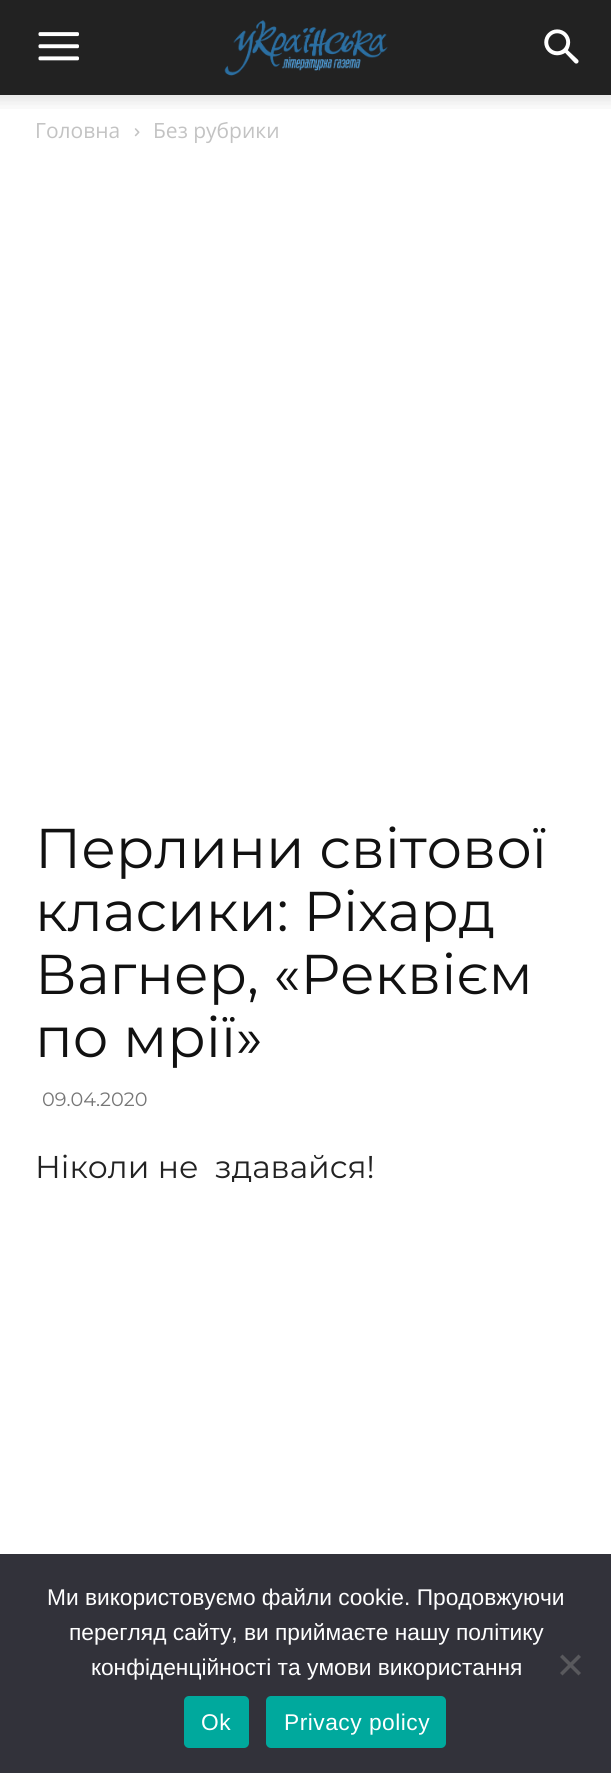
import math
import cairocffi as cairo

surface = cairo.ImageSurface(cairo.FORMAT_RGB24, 611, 1773)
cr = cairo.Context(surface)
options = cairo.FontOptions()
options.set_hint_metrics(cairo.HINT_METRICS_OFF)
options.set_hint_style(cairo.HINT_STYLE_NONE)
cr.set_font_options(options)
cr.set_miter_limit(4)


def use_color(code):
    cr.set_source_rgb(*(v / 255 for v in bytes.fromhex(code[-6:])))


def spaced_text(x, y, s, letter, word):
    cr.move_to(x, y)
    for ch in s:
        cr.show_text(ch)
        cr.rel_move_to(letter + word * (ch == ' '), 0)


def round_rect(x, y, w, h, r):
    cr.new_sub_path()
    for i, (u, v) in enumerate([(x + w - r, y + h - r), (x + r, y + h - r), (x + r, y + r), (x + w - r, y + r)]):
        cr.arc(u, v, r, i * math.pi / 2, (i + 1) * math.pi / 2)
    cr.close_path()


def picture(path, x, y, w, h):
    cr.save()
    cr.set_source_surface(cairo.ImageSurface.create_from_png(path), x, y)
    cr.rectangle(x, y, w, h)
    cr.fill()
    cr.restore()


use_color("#ffffff")
cr.paint()
use_color("#222222")
cr.rectangle(0, 0, 611, 95)
cr.fill()
picture("img1.png", 38, 32, 41, 29)
picture("img2.png", 224, 20, 164, 56)
picture("img3.png", 544, 29, 35, 35)
picture("img4.png", 0, 95, 611, 14)
cr.select_font_face("Open Sans")
cr.set_font_size(21)
use_color("#c3c3c3")
cr.move_to(35, 138)
cr.show_text("Головна")
picture("img5.png", 134, 128, 6, 9)
cr.move_to(153, 138)
cr.show_text("Без рубрики")
cr.select_font_face("Montserrat Thin")
cr.set_font_size(56)
use_color("#111111")
cr.move_to(35, 868)
cr.show_text("Перлини світової")
cr.move_to(35, 931)
cr.show_text("класики: Ріхард")
cr.move_to(35, 994)
cr.show_text("Вагнер, «Реквієм")
cr.move_to(35, 1057)
cr.show_text("по мрії»")
cr.set_font_size(19.25)
use_color("#767676")
cr.move_to(42, 1106)
cr.show_text("09.04.2020")
cr.set_font_size(31.5)
use_color("#222222")
cr.move_to(35, 1178)
cr.show_text("Ніколи не  здавайся!")
use_color("#32323a")
cr.rectangle(0, 1554, 611, 219)
cr.fill()
cr.select_font_face("Liberation Sans")
cr.set_font_size(22.75)
use_color("#ffffff")
cr.move_to(47, 1605)
cr.show_text("Ми використовуємо файли cookie. Продовжуючи")
cr.move_to(69, 1640)
cr.show_text("перегляд сайту, ви приймаєте нашу політику")
cr.move_to(91, 1675)
cr.show_text("конфіденційності та умови використання")
use_color("#59595d")
cr.new_path()
cr.move_to(578.5, 1654.5)
cr.line_to(581, 1657)
cr.line_to(562.5, 1675.5)
cr.line_to(560, 1673)
cr.close_path()
cr.fill()
cr.new_path()
cr.move_to(560, 1657)
cr.line_to(562.5, 1654.5)
cr.line_to(581, 1673)
cr.line_to(578.5, 1675.5)
cr.close_path()
cr.fill()
use_color("#00a99d")
round_rect(184, 1696, 65, 52, 5)
cr.fill()
use_color("#ffffff")
spaced_text(201, 1730, "Ok", 0.5, 0)
use_color("#00a99d")
round_rect(266, 1696, 180, 52, 5)
cr.fill()
use_color("#ffffff")
spaced_text(284, 1730, "Privacy policy", 0.5, 0)
surface.write_to_png("result.png")
